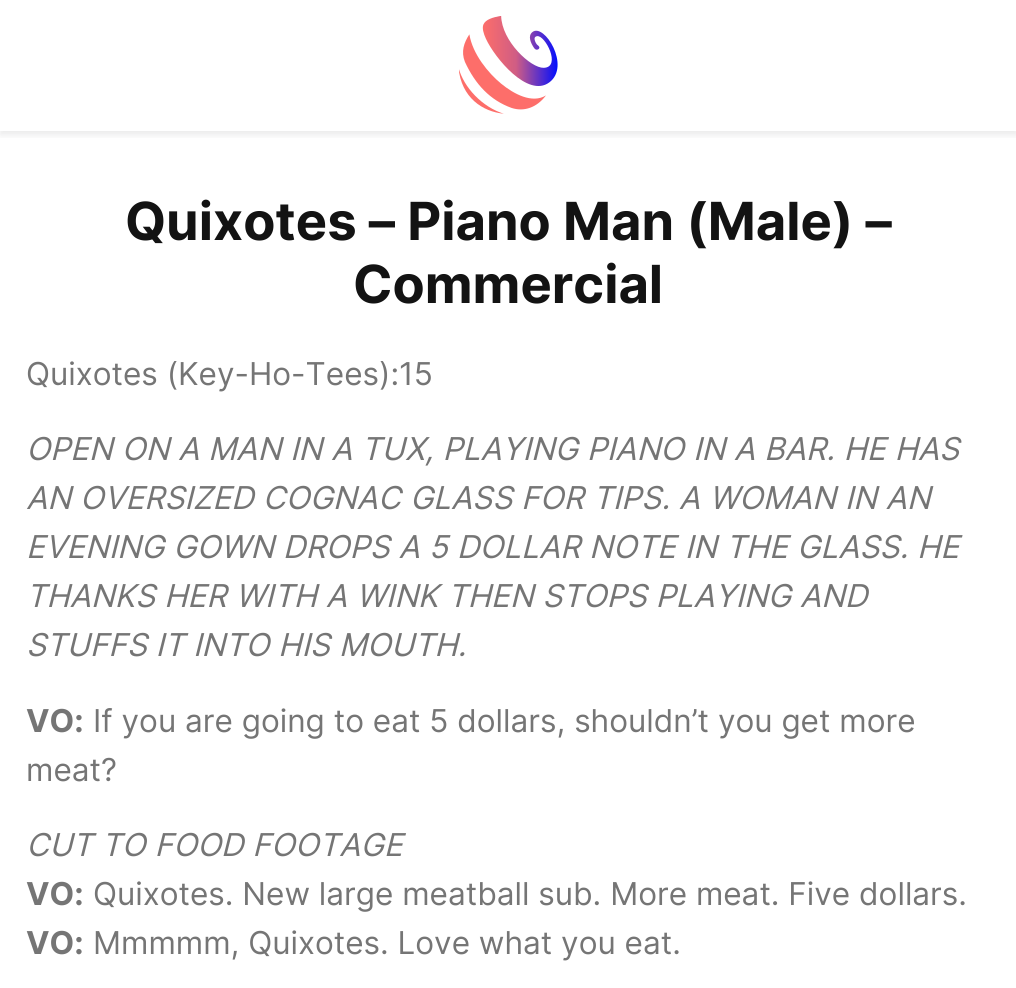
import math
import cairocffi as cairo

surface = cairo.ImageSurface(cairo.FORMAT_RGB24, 1016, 988)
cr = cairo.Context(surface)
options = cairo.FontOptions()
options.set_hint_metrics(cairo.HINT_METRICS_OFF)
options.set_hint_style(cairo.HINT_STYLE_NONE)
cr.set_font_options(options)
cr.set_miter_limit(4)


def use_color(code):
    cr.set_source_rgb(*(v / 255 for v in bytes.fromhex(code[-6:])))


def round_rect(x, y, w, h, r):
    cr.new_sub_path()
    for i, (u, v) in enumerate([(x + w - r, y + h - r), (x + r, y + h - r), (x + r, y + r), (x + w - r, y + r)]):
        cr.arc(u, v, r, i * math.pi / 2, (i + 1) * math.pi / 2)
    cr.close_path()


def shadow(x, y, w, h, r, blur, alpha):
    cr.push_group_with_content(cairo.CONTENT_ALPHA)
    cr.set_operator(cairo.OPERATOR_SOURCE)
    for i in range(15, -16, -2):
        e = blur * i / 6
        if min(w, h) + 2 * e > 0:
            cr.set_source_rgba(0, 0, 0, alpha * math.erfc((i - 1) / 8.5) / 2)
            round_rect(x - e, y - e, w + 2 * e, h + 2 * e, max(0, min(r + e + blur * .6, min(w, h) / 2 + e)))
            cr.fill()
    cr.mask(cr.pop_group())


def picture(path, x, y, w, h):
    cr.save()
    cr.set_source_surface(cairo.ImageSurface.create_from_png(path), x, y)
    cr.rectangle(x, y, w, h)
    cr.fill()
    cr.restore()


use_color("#ffffff")
cr.paint()
cr.save()
cr.rectangle(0, 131, 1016, 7)
cr.clip()
use_color("#303133")
shadow(0, 4, 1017, 131, 0, 3.5, 0.1)
cr.restore()
picture("img1.png", 459, 16, 99, 98)
cr.select_font_face("Inter", cairo.FONT_SLANT_NORMAL, cairo.FONT_WEIGHT_BOLD)
cr.set_font_size(52.5)
use_color("#131313")
cr.move_to(125, 240)
cr.show_text("Quixotes – Piano Man (Male) –")
cr.move_to(353, 303)
cr.show_text("Commercial")
cr.select_font_face("Inter")
cr.set_font_size(31.5)
use_color("#757575")
cr.move_to(26, 385)
cr.show_text("Quixotes (Key-Ho-Tees):15")
cr.select_font_face("Inter", cairo.FONT_SLANT_ITALIC)
cr.move_to(26, 460)
cr.show_text("OPEN ON A MAN IN A TUX, PLAYING PIANO IN A BAR. HE HAS")
cr.move_to(26, 509)
cr.show_text("AN OVERSIZED COGNAC GLASS FOR TIPS. A WOMAN IN AN")
cr.move_to(26, 558)
cr.show_text("EVENING GOWN DROPS A 5 DOLLAR NOTE IN THE GLASS. HE")
cr.move_to(26, 607)
cr.show_text("THANKS HER WITH A WINK THEN STOPS PLAYING AND")
cr.move_to(26, 656)
cr.show_text("STUFFS IT INTO HIS MOUTH.")
cr.select_font_face("Inter", cairo.FONT_SLANT_NORMAL, cairo.FONT_WEIGHT_BOLD)
cr.move_to(26, 732)
cr.show_text("VO:")
cr.select_font_face("Inter")
cr.move_to(93, 732)
cr.show_text("If you are going to eat 5 dollars, shouldn’t you get more")
cr.move_to(26, 781)
cr.show_text("meat?")
cr.select_font_face("Inter", cairo.FONT_SLANT_ITALIC)
cr.move_to(26, 856)
cr.show_text("CUT TO FOOD FOOTAGE")
cr.select_font_face("Inter", cairo.FONT_SLANT_NORMAL, cairo.FONT_WEIGHT_BOLD)
cr.move_to(26, 905)
cr.show_text("VO:")
cr.select_font_face("Inter")
cr.move_to(93, 905)
cr.show_text("Quixotes. New large meatball sub. More meat. Five dollars.")
cr.select_font_face("Inter", cairo.FONT_SLANT_NORMAL, cairo.FONT_WEIGHT_BOLD)
cr.move_to(26, 954)
cr.show_text("VO:")
cr.select_font_face("Inter")
cr.move_to(93, 954)
cr.show_text("Mmmmm, Quixotes. Love what you eat.")
surface.write_to_png("result.png")
